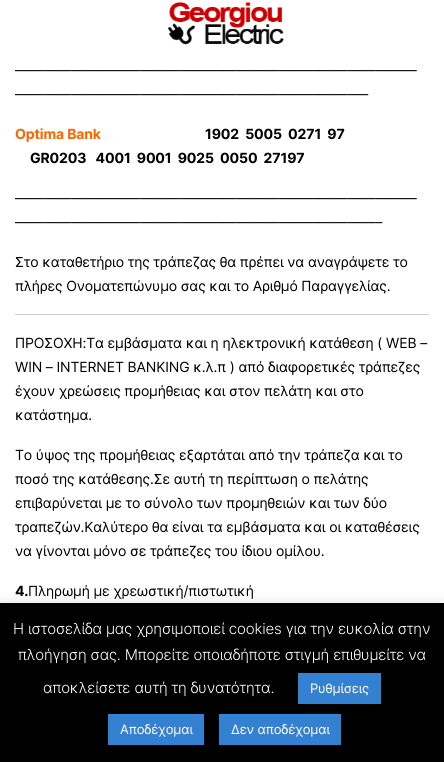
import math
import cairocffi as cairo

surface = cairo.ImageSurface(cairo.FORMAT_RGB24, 444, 762)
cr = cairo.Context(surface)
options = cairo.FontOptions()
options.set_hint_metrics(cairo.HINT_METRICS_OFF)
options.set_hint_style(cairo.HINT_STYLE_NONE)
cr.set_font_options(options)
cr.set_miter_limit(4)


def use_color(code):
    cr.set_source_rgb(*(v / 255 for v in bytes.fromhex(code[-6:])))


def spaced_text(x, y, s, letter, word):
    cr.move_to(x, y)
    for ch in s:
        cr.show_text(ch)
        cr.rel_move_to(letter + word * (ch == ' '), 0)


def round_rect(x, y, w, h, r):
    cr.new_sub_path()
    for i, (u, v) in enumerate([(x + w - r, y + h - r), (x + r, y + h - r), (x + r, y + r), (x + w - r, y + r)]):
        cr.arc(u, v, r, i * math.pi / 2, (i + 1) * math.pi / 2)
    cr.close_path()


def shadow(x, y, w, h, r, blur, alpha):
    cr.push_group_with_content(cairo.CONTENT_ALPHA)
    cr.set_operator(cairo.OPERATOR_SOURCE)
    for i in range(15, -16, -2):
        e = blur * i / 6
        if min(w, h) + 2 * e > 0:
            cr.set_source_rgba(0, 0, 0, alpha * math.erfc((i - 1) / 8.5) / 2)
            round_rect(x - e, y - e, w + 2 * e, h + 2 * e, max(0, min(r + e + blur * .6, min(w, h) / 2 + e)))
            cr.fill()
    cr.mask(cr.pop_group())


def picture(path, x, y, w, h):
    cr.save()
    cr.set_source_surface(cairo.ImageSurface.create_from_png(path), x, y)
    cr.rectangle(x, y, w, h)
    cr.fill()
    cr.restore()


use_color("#ffffff")
cr.paint()
picture("img1.png", 167, 2, 117, 43)
cr.select_font_face("Inter")
cr.set_font_size(14)
use_color("#000000")
spaced_text(15, 75, "—————————————————————————————", -0.15, 0)
spaced_text(15, 99, "—————————————————————————–", -0.15, 0)
cr.select_font_face("Inter", cairo.FONT_SLANT_NORMAL, cairo.FONT_WEIGHT_BOLD)
use_color("#ff6600")
spaced_text(15, 139, "Optima Bank", -0.15, 0)
use_color("#000000")
spaced_text(205, 139, "1902  5005  0271  97", -0.15, 0)
spaced_text(30, 163, "GR0203   4001  9001  9025  0050  27197", -0.15, 0)
cr.select_font_face("Inter")
spaced_text(15, 203, "—————————————————————————————", -0.15, 0)
spaced_text(15, 227, "——————————————————————————–", -0.15, 0)
spaced_text(15, 267, "Στο καταθετήριο της τράπεζας θα πρέπει να αναγράψετε το", -0.15, 0)
spaced_text(15, 291, "πλήρες Ονοματεπώνυμο σας και το Αριθμό Παραγγελίας.", -0.15, 0)
use_color("#cccfd1")
cr.rectangle(15, 314, 414, 1)
cr.fill()
use_color("#000000")
spaced_text(15, 348, "ΠΡΟΣΟΧΗ:Τα εμβάσματα και η ηλεκτρονική κατάθεση ( WEB –", -0.15, 0)
spaced_text(15, 372, "WIN – INTERNET BANKING κ.λ.π ) από διαφορετικές τράπεζες", -0.15, 0)
spaced_text(15, 396, "έχουν χρεώσεις προμήθειας και στον πελάτη και στο", -0.15, 0)
spaced_text(15, 420, "κατάστημα.", -0.15, 0)
spaced_text(15, 460, "Το ύψος της προμήθειας εξαρτάται από την τράπεζα και το", -0.15, 0)
spaced_text(15, 484, "ποσό της κατάθεσης.Σε αυτή τη περίπτωση ο πελάτης", -0.15, 0)
spaced_text(15, 508, "επιβαρύνεται με το σύνολο των προμηθειών και των δύο", -0.15, 0)
spaced_text(15, 532, "τραπεζών.Καλύτερο θα είναι τα εμβάσματα και οι καταθέσεις", -0.15, 0)
spaced_text(15, 556, "να γίνονται μόνο σε τράπεζες του ίδιου ομίλου.", -0.15, 0)
cr.select_font_face("Inter", cairo.FONT_SLANT_NORMAL, cairo.FONT_WEIGHT_BOLD)
spaced_text(15, 596, "4.", -0.15, 0)
cr.select_font_face("Inter")
spaced_text(28, 596, "Πληρωμή με χρεωστική/πιστωτική", -0.15, 0)
use_color("#acabab")
shadow(0, 602, 444, 159, 0, 5, 0.3)
use_color("#000000")
cr.rectangle(0, 603, 444, 159)
cr.fill()
cr.select_font_face("Inter Light")
cr.set_font_size(15)
use_color("#ffffff")
spaced_text(13, 634, "Η ιστοσελίδα μας χρησιμοποιεί cookies για την ευκολία στην", -0.15, 0)
spaced_text(18, 660, "πλοήγηση σας. Μπορείτε οποιαδήποτε στιγμή επιθυμείτε να", -0.15, 0)
spaced_text(43, 693, "αποκλείσετε αυτή τη δυνατότητα.", -0.15, 0)
use_color("#3480d1")
cr.rectangle(298, 673, 83, 31)
cr.fill()
cr.select_font_face("Inter")
cr.set_font_size(13)
use_color("#ffffff")
spaced_text(310, 693, "Ρυθμίσεις", -0.15, 0)
use_color("#3480d1")
cr.rectangle(108, 714, 96, 31)
cr.fill()
use_color("#ffffff")
spaced_text(120, 734, "Αποδέχομαι", -0.15, 0)
use_color("#3480d1")
cr.rectangle(219, 714, 122, 31)
cr.fill()
use_color("#ffffff")
spaced_text(231, 734, "Δεν αποδέχομαι", -0.15, 0)
surface.write_to_png("result.png")
